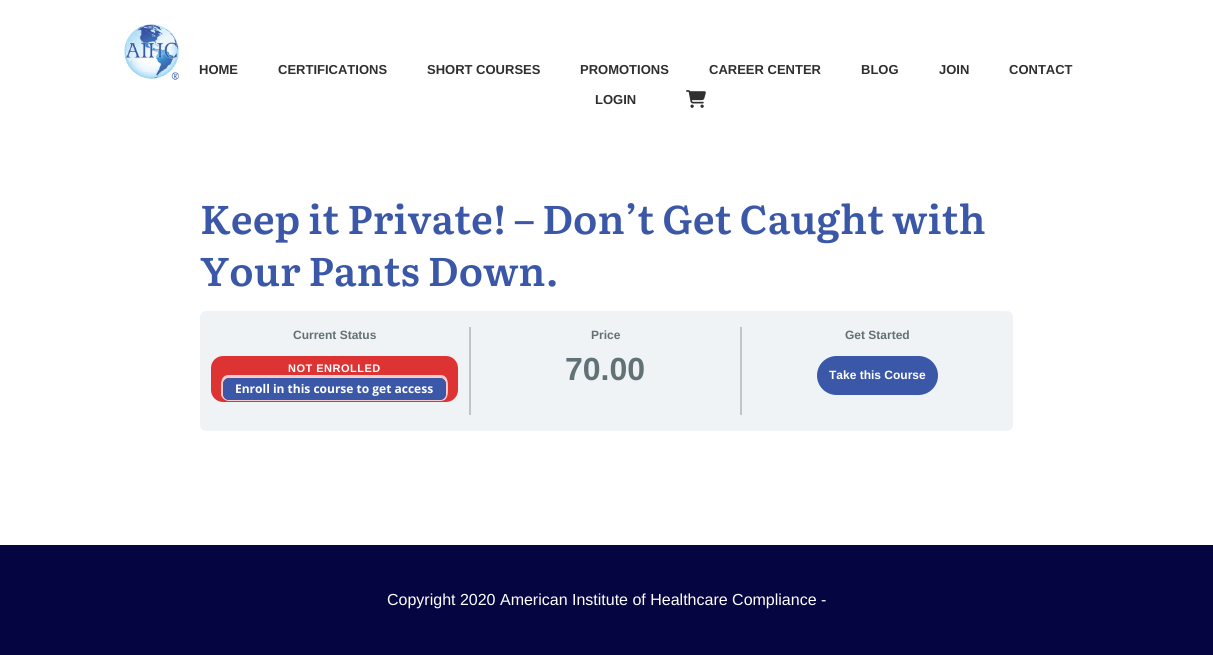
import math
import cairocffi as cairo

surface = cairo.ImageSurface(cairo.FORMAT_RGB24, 1213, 655)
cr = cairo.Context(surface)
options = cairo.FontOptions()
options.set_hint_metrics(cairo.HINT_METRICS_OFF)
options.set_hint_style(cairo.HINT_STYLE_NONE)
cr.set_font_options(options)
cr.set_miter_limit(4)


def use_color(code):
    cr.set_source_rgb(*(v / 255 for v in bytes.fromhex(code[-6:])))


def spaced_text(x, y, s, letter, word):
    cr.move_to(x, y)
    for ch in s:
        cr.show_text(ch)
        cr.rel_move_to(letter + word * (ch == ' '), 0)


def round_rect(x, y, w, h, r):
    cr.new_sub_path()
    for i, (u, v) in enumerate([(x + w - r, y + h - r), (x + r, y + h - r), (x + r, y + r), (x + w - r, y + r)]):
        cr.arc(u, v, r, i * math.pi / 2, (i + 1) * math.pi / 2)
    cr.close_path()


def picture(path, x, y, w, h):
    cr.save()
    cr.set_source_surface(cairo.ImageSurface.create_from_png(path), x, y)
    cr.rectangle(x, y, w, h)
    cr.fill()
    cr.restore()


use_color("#ffffff")
cr.paint()
picture("img1.png", 124, 24, 55, 56)
cr.select_font_face("Liberation Sans", cairo.FONT_SLANT_NORMAL, cairo.FONT_WEIGHT_BOLD)
cr.set_font_size(13)
use_color("#2f2f2f")
cr.move_to(199, 74)
cr.show_text("HOME")
cr.move_to(278, 74)
cr.show_text("CERTIFICATIONS")
cr.move_to(427, 74)
cr.show_text("SHORT COURSES")
cr.move_to(580, 74)
cr.show_text("PROMOTIONS")
cr.move_to(709, 74)
cr.show_text("CAREER CENTER")
cr.move_to(861, 74)
cr.show_text("BLOG")
cr.move_to(939, 74)
cr.show_text("JOIN")
cr.move_to(1009, 74)
cr.show_text("CONTACT")
cr.move_to(595, 104)
cr.show_text("LOGIN")
picture("img2.png", 686, 90, 20, 18)
cr.select_font_face("Literata SemiBold")
cr.set_font_size(40)
use_color("#3b57a8")
cr.move_to(200, 234)
cr.show_text("Keep it Private! – Don’t Get Caught with")
cr.move_to(200, 286)
cr.show_text("Your Pants Down.")
use_color("#f0f3f6")
round_rect(200, 311, 813, 120, 6)
cr.fill()
use_color("#bec5cb")
cr.rectangle(469, 327, 2, 88)
cr.fill()
cr.select_font_face("Liberation Sans", cairo.FONT_SLANT_NORMAL, cairo.FONT_WEIGHT_BOLD)
cr.set_font_size(12)
use_color("#617175")
cr.move_to(293, 339)
cr.show_text("Current Status")
use_color("#dd3333")
round_rect(211, 356, 247, 46, 12)
cr.fill()
cr.set_font_size(11)
use_color("#ffffff")
spaced_text(288, 372, "NOT ENROLLED", 0.5, 0)
use_color("#f7cccc")
cr.set_fill_rule(cairo.FILL_RULE_EVEN_ODD)
cr.new_path()
cr.move_to(229, 375)
cr.curve_to(221, 375, 221, 382, 221, 388)
cr.line_to(221, 395)
cr.curve_to(222, 398, 225, 401, 229, 401)
cr.line_to(440, 401)
cr.curve_to(448, 401, 448, 394, 448, 388)
cr.curve_to(448, 382, 448, 375, 440, 375)
cr.close_path()
cr.move_to(229, 378)
cr.curve_to(226, 378, 223, 381, 223, 384)
cr.line_to(223, 394)
cr.curve_to(223, 397, 226, 400, 229, 400)
cr.line_to(440, 400)
cr.curve_to(443, 400, 446, 397, 446, 394)
cr.line_to(446, 384)
cr.curve_to(446, 381, 443, 378, 440, 378)
cr.close_path()
cr.fill()
use_color("#3b57a8")
round_rect(223, 378, 223, 22, 6)
cr.fill()
cr.select_font_face("Open Sans", cairo.FONT_SLANT_NORMAL, cairo.FONT_WEIGHT_BOLD)
cr.set_font_size(12)
use_color("#ffffff")
cr.move_to(235, 393)
cr.show_text("Enroll in this course to get access")
use_color("#bec5cb")
cr.rectangle(740, 327, 2, 88)
cr.fill()
cr.select_font_face("Liberation Sans", cairo.FONT_SLANT_NORMAL, cairo.FONT_WEIGHT_BOLD)
use_color("#617175")
cr.move_to(591, 339)
cr.show_text("Price")
cr.set_font_size(32)
cr.move_to(565, 380)
cr.show_text("70.00")
cr.set_font_size(12)
cr.move_to(845, 339)
cr.show_text("Get Started")
use_color("#3b57a8")
round_rect(817, 356, 121, 39, 19.5)
cr.fill()
use_color("#ffffff")
cr.move_to(829, 379)
cr.show_text("Take this Course")
use_color("#050541")
cr.rectangle(0, 545, 1213, 110)
cr.fill()
cr.select_font_face("Liberation Sans")
cr.set_font_size(16)
use_color("#ffffff")
cr.move_to(387, 605)
cr.show_text("Copyright 2020 American Institute of Healthcare Compliance -")
surface.write_to_png("result.png")
